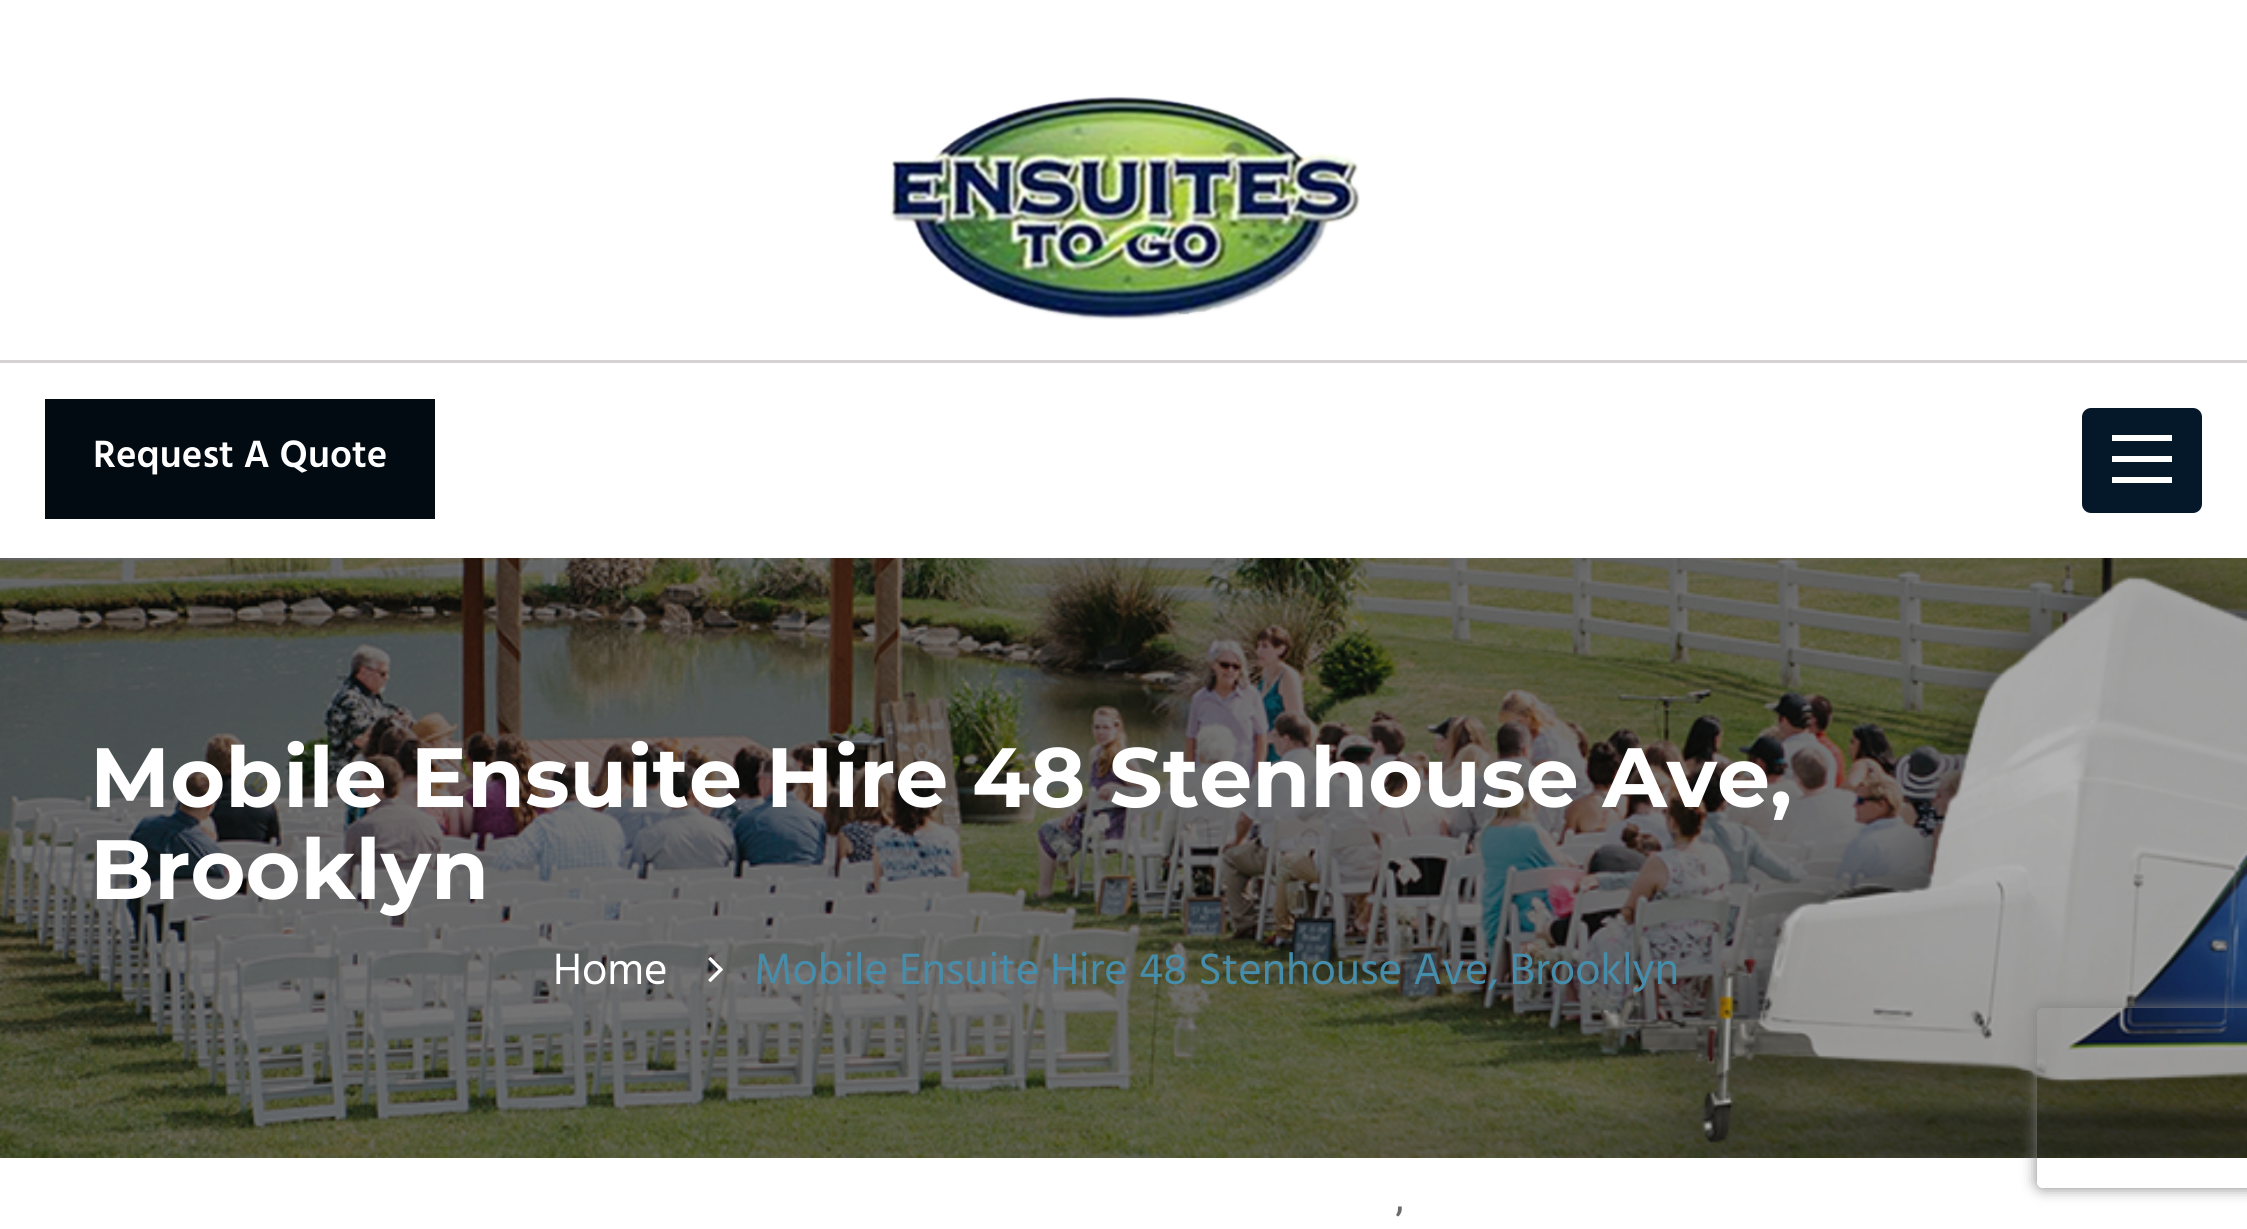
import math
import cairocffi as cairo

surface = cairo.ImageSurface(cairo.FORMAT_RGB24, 2247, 1229)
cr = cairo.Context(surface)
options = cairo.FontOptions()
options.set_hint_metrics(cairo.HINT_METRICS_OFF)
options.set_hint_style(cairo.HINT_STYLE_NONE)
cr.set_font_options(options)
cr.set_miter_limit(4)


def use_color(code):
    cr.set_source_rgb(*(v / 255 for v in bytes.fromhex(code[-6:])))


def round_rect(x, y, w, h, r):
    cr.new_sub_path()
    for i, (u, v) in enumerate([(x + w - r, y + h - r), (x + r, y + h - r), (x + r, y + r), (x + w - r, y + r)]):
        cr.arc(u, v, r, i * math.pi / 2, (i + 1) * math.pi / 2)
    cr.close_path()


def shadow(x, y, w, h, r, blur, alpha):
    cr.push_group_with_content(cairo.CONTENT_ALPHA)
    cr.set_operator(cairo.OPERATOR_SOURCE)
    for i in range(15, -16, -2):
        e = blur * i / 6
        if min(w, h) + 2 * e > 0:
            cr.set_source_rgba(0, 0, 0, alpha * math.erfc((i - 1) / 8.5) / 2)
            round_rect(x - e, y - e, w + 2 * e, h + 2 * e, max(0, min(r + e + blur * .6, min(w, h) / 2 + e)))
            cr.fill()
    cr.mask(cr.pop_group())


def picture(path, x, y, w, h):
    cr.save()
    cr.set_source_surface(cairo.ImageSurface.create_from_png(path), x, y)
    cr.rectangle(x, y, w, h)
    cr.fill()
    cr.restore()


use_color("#ffffff")
cr.paint()
use_color("#d4d2d2")
cr.rectangle(0, 360, 2247, 3)
cr.fill()
picture("img1.png", 890, 96, 470, 224)
use_color("#020b12")
cr.rectangle(45, 399, 390, 120)
cr.fill()
cr.select_font_face("Hind SemiBold")
cr.set_font_size(39)
use_color("#ffffff")
cr.move_to(93, 467)
cr.show_text("Request A Quote")
use_color("#051829")
round_rect(2082, 408, 120, 105, 9)
cr.fill()
use_color("#ffffff")
cr.rectangle(2112, 435, 60, 6)
cr.fill()
cr.rectangle(2112, 456, 60, 6)
cr.fill()
cr.rectangle(2112, 477, 60, 6)
cr.fill()
picture("img2.png", 0, 558, 2247, 600)
cr.select_font_face("Montserrat", cairo.FONT_SLANT_NORMAL, cairo.FONT_WEIGHT_BOLD)
cr.set_font_size(84)
cr.move_to(90, 807)
cr.show_text("Mobile Ensuite Hire 48 Stenhouse Ave,")
cr.move_to(90, 899)
cr.show_text("Brooklyn")
cr.select_font_face("Hind")
cr.set_font_size(45)
cr.move_to(553, 984)
cr.show_text("Home")
picture("img3.png", 708, 957, 15, 25)
use_color("#468dab")
cr.move_to(754, 984)
cr.show_text("Mobile Ensuite Hire 48 Stenhouse Ave, Brooklyn")
cr.select_font_face("Roboto")
cr.set_font_size(42)
use_color("#6a6a6a")
cr.move_to(1395, 1238)
cr.show_text("’")
cr.save()
cr.set_fill_rule(cairo.FILL_RULE_EVEN_ODD)
cr.new_path()
cr.move_to(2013, 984)
cr.line_to(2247, 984)
cr.line_to(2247, 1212)
cr.line_to(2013, 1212)
cr.close_path()
cr.move_to(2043, 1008)
cr.line_to(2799, 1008)
cr.curve_to(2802.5, 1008, 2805, 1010.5, 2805, 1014)
cr.line_to(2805, 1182)
cr.curve_to(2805, 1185.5, 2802.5, 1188, 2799, 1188)
cr.line_to(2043, 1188)
cr.curve_to(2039.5, 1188, 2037, 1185.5, 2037, 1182)
cr.line_to(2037, 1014)
cr.curve_to(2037, 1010.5, 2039.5, 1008, 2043, 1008)
cr.close_path()
cr.clip()
use_color("#808080")
shadow(2037, 1008, 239, 180, 6, 7.5, 1)
cr.restore()
surface.write_to_png("result.png")
